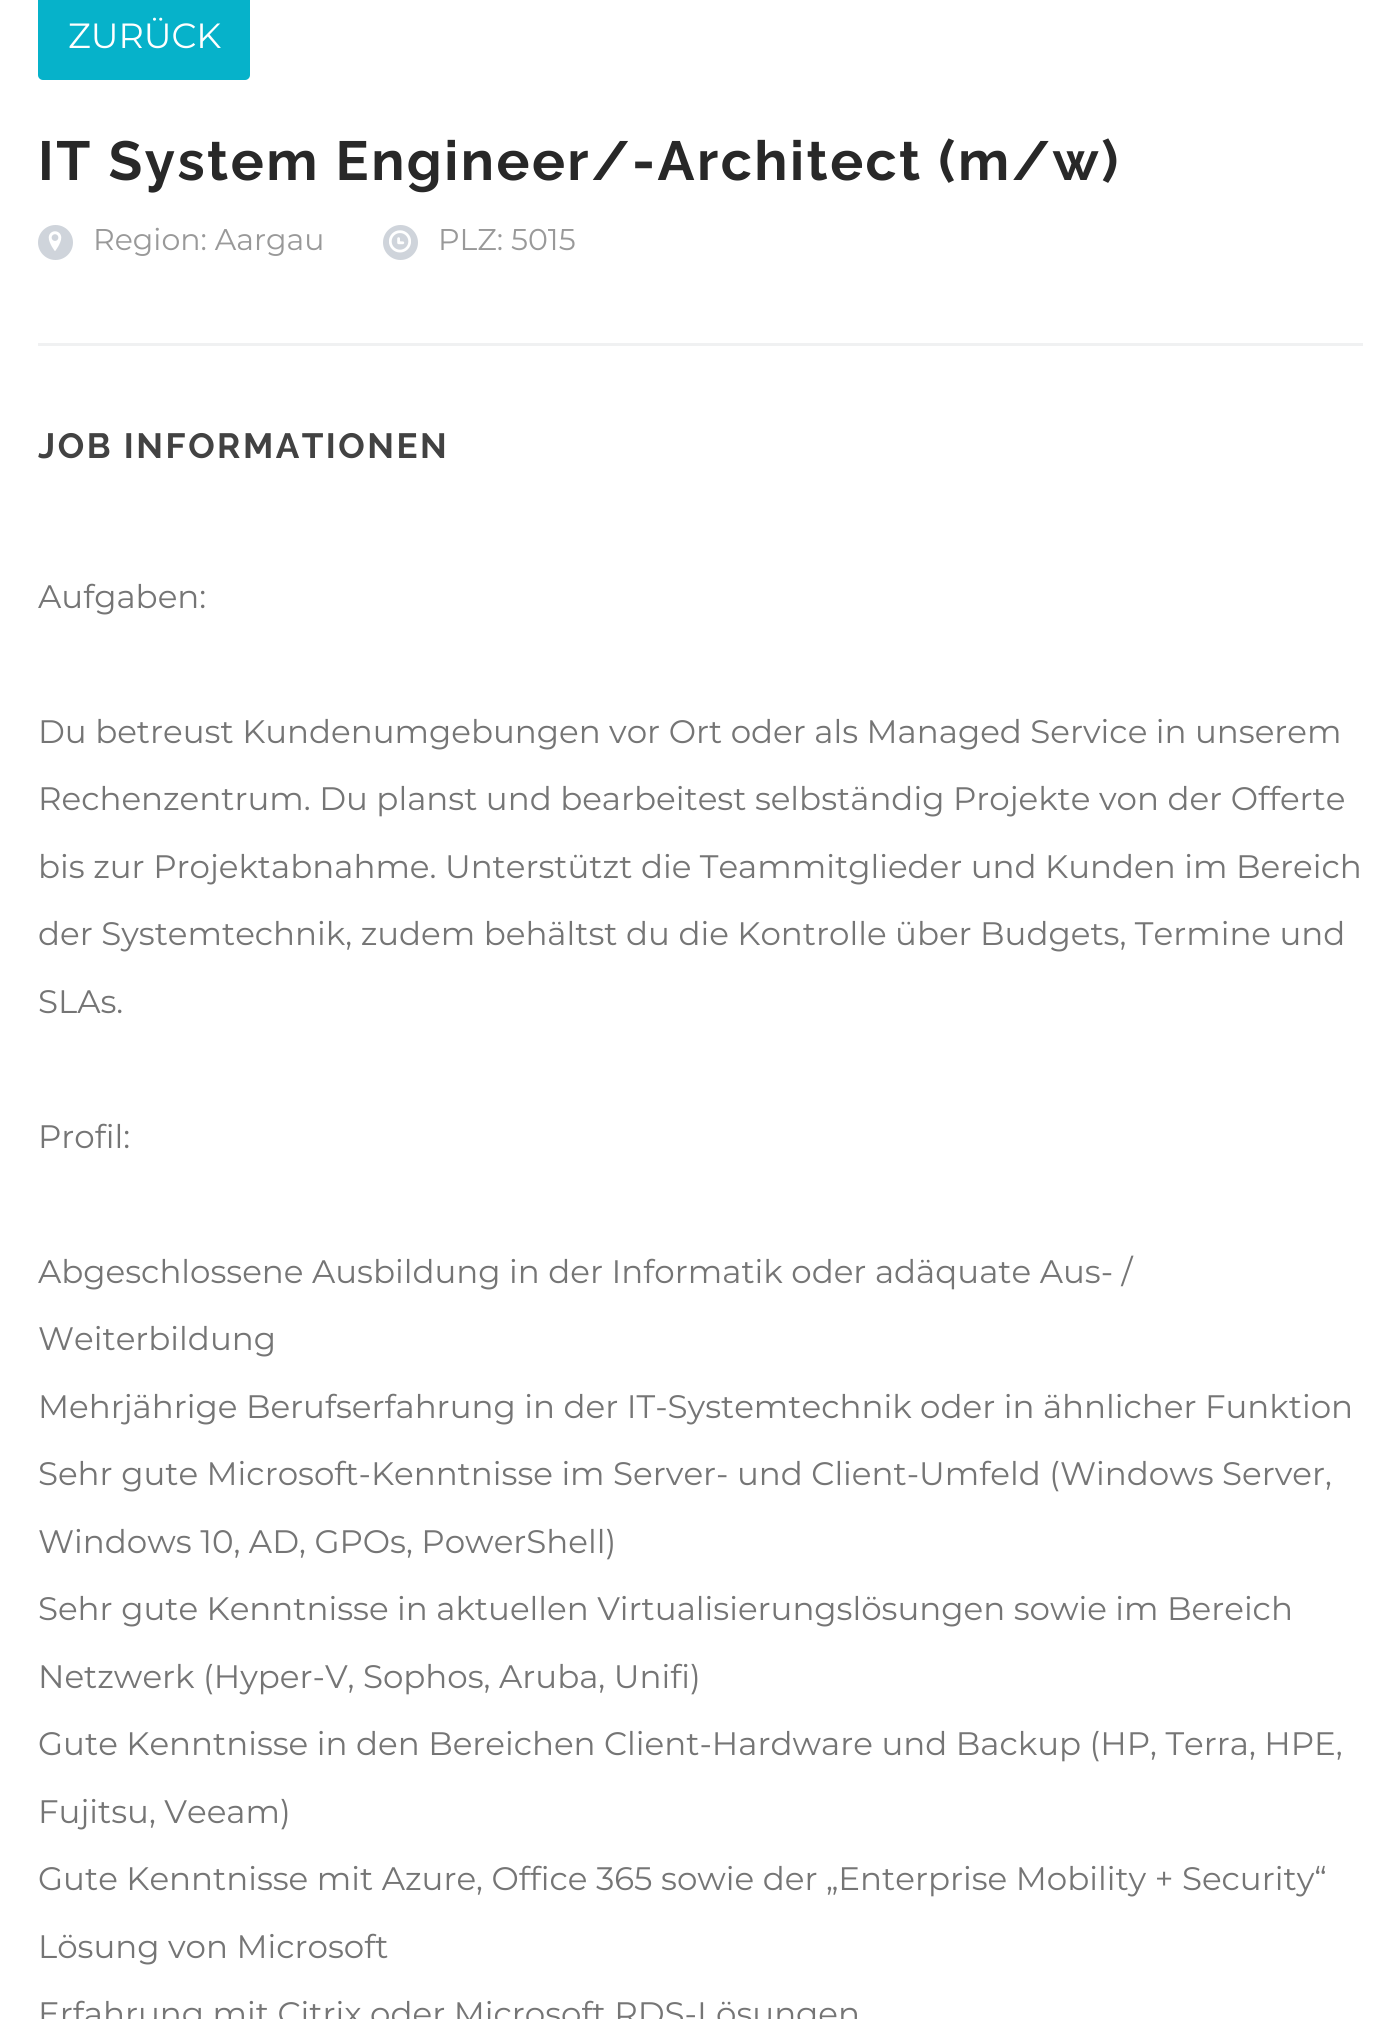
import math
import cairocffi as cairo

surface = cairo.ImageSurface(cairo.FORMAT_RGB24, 1399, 2019)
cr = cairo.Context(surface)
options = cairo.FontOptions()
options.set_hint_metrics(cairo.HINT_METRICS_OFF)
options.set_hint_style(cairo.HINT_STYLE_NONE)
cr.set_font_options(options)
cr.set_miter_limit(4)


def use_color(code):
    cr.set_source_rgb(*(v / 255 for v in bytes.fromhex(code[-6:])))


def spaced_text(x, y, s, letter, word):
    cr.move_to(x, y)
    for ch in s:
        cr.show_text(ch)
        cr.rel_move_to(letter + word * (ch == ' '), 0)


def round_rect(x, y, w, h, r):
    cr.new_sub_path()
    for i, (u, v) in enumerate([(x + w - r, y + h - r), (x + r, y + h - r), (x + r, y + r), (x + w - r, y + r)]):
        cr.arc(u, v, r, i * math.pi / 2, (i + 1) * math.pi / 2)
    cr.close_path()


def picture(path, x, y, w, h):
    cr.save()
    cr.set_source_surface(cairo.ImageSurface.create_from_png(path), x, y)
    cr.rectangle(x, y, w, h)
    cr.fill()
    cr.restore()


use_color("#ffffff")
cr.paint()
use_color("#f0f1f2")
cr.rectangle(38, 343, 1325, 3)
cr.fill()
use_color("#06b2ca")
round_rect(38, -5, 212, 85, 5)
cr.fill()
cr.select_font_face("Montserrat")
cr.set_font_size(35)
use_color("#ffffff")
cr.move_to(68, 48)
cr.show_text("ZURÜCK")
cr.select_font_face("Raleway", cairo.FONT_SLANT_NORMAL, cairo.FONT_WEIGHT_BOLD)
cr.set_font_size(55)
use_color("#282828")
spaced_text(38, 180, "IT System Engineer/-Architect (m/w)", 2.5, 0)
use_color("#cfd4db")
cr.new_path()
cr.arc(55.5, 242.5, 17.5, 0, 2 * math.pi)
cr.fill()
picture("img1.png", 48, 231, 14, 20)
cr.select_font_face("Montserrat")
cr.set_font_size(30)
use_color("#999999")
cr.move_to(93, 250)
cr.show_text("Region: Aargau")
use_color("#cfd4db")
cr.new_path()
cr.arc(400.5, 242.5, 17.5, 0, 2 * math.pi)
cr.fill()
picture("img2.png", 389, 230, 22, 23)
use_color("#999999")
cr.move_to(438, 250)
cr.show_text("PLZ: 5015")
cr.select_font_face("Raleway", cairo.FONT_SLANT_NORMAL, cairo.FONT_WEIGHT_BOLD)
cr.set_font_size(35)
use_color("#424242")
spaced_text(38, 458, "JOB INFORMATIONEN", 2.5, 0)
cr.select_font_face("Montserrat")
cr.set_font_size(32.5)
use_color("#757575")
cr.move_to(38, 608)
cr.show_text("Aufgaben:")
cr.move_to(38, 743)
cr.show_text("Du betreust Kundenumgebungen vor Ort oder als Managed Service in unserem")
cr.move_to(38, 810)
cr.show_text("Rechenzentrum. Du planst und bearbeitest selbständig Projekte von der Offerte")
cr.move_to(38, 878)
cr.show_text("bis zur Projektabnahme. Unterstützt die Teammitglieder und Kunden im Bereich")
cr.move_to(38, 945)
cr.show_text("der Systemtechnik, zudem behältst du die Kontrolle über Budgets, Termine und")
cr.move_to(38, 1013)
cr.show_text("SLAs.")
cr.move_to(38, 1148)
cr.show_text("Profil:")
cr.move_to(38, 1283)
cr.show_text("Abgeschlossene Ausbildung in der Informatik oder adäquate Aus- /")
cr.move_to(38, 1350)
cr.show_text("Weiterbildung")
cr.move_to(38, 1418)
cr.show_text("Mehrjährige Berufserfahrung in der IT-Systemtechnik oder in ähnlicher Funktion")
cr.move_to(38, 1485)
cr.show_text("Sehr gute Microsoft-Kenntnisse im Server- und Client-Umfeld (Windows Server,")
cr.move_to(38, 1553)
cr.show_text("Windows 10, AD, GPOs, PowerShell)")
cr.move_to(38, 1620)
cr.show_text("Sehr gute Kenntnisse in aktuellen Virtualisierungslösungen sowie im Bereich")
cr.move_to(38, 1688)
cr.show_text("Netzwerk (Hyper-V, Sophos, Aruba, Unifi)")
cr.move_to(38, 1755)
cr.show_text("Gute Kenntnisse in den Bereichen Client-Hardware und Backup (HP, Terra, HPE,")
cr.move_to(38, 1823)
cr.show_text("Fujitsu, Veeam)")
cr.move_to(38, 1890)
cr.show_text("Gute Kenntnisse mit Azure, Office 365 sowie der „Enterprise Mobility + Security“")
cr.move_to(38, 1958)
cr.show_text("Lösung von Microsoft")
cr.move_to(38, 2025)
cr.show_text("Erfahrung mit Citrix oder Microsoft RDS-Lösungen")
surface.write_to_png("result.png")
